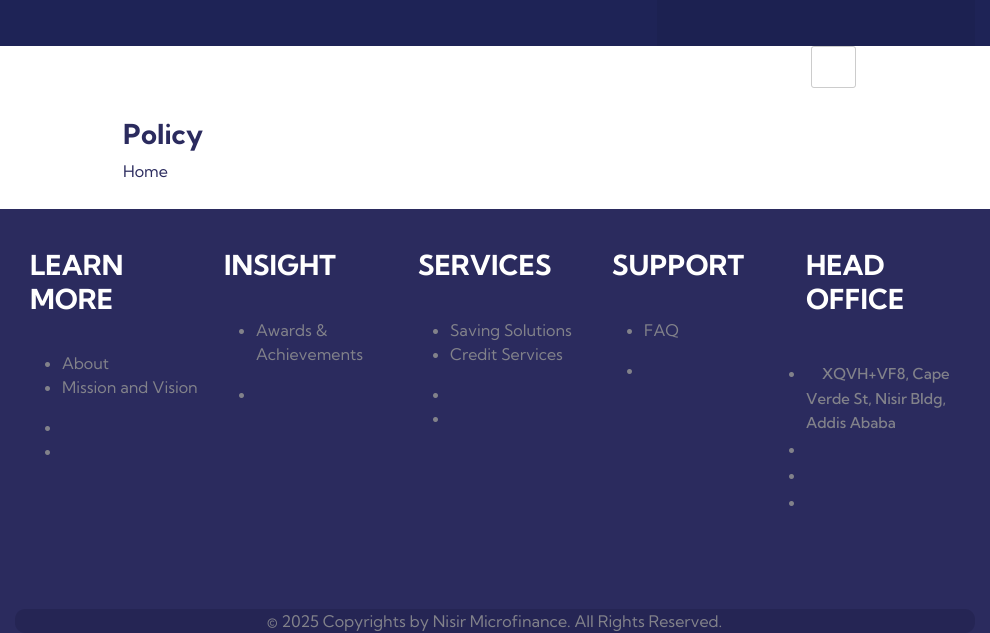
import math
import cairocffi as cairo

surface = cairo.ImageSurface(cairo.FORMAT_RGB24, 990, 633)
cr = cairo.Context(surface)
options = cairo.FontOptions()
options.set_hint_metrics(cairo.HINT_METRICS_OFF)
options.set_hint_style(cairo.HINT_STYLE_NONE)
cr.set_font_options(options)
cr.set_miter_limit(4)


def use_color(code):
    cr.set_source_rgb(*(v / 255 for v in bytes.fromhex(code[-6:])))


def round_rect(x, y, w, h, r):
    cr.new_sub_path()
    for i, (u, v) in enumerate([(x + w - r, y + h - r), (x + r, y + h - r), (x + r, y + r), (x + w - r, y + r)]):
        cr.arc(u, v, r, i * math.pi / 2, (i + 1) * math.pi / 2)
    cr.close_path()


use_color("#ffffff")
cr.paint()
use_color("#1e2356")
cr.rectangle(0, 0, 990, 46)
cr.fill()
use_color("#1c2151")
cr.rectangle(657, 0, 318, 46)
cr.fill()
round_rect(811.5, 46.5, 44, 41, 2.5)
use_color("#cccccc")
cr.set_line_width(1)
cr.stroke()
cr.select_font_face("Kumbh Sans", cairo.FONT_SLANT_NORMAL, cairo.FONT_WEIGHT_BOLD)
cr.set_font_size(27.5)
use_color("#2b2b5e")
cr.move_to(123, 144)
cr.show_text("Policy")
cr.select_font_face("Kumbh Sans")
cr.set_font_size(16)
cr.move_to(123, 177)
cr.show_text("Home")
cr.rectangle(0, 209, 990, 424)
cr.fill()
cr.select_font_face("Kumbh Sans", cairo.FONT_SLANT_NORMAL, cairo.FONT_WEIGHT_BOLD)
cr.set_font_size(27.5)
use_color("#ffffff")
cr.move_to(30, 275)
cr.show_text("LEARN")
cr.move_to(30, 309)
cr.show_text("MORE")
use_color("#82828a")
cr.new_path()
cr.arc(47.5, 364.5, 2.5, 0, 2 * math.pi)
cr.fill()
cr.select_font_face("Kumbh Sans")
cr.set_font_size(16)
cr.move_to(62, 369)
cr.show_text("About")
cr.new_path()
cr.arc(47.5, 388.5, 2.5, 0, 2 * math.pi)
cr.fill()
cr.move_to(62, 393)
cr.show_text("Mission and Vision")
cr.new_path()
cr.arc(47.5, 428.5, 2.5, 0, 2 * math.pi)
cr.fill()
cr.arc(47.5, 452.5, 2.5, 0, 2 * math.pi)
cr.fill()
cr.select_font_face("Kumbh Sans", cairo.FONT_SLANT_NORMAL, cairo.FONT_WEIGHT_BOLD)
cr.set_font_size(27.5)
use_color("#ffffff")
cr.move_to(224, 275)
cr.show_text("INSIGHT")
use_color("#82828a")
cr.new_path()
cr.arc(241.5, 331.5, 2.5, 0, 2 * math.pi)
cr.fill()
cr.select_font_face("Kumbh Sans")
cr.set_font_size(16)
cr.move_to(256, 336)
cr.show_text("Awards &")
cr.move_to(256, 360)
cr.show_text("Achievements")
cr.new_path()
cr.arc(241.5, 395.5, 2.5, 0, 2 * math.pi)
cr.fill()
cr.select_font_face("Kumbh Sans", cairo.FONT_SLANT_NORMAL, cairo.FONT_WEIGHT_BOLD)
cr.set_font_size(27.5)
use_color("#ffffff")
cr.move_to(418, 275)
cr.show_text("SERVICES")
use_color("#82828a")
cr.new_path()
cr.arc(435.5, 331.5, 2.5, 0, 2 * math.pi)
cr.fill()
cr.select_font_face("Kumbh Sans")
cr.set_font_size(16)
cr.move_to(450, 336)
cr.show_text("Saving Solutions")
cr.new_path()
cr.arc(435.5, 355.5, 2.5, 0, 2 * math.pi)
cr.fill()
cr.move_to(450, 360)
cr.show_text("Credit Services")
cr.new_path()
cr.arc(435.5, 395.5, 2.5, 0, 2 * math.pi)
cr.fill()
cr.arc(435.5, 419.5, 2.5, 0, 2 * math.pi)
cr.fill()
cr.select_font_face("Kumbh Sans", cairo.FONT_SLANT_NORMAL, cairo.FONT_WEIGHT_BOLD)
cr.set_font_size(27.5)
use_color("#ffffff")
cr.move_to(612, 275)
cr.show_text("SUPPORT")
use_color("#82828a")
cr.new_path()
cr.arc(629.5, 331.5, 2.5, 0, 2 * math.pi)
cr.fill()
cr.select_font_face("Kumbh Sans")
cr.set_font_size(16)
cr.move_to(644, 336)
cr.show_text("FAQ")
cr.new_path()
cr.arc(629.5, 371.5, 2.5, 0, 2 * math.pi)
cr.fill()
cr.select_font_face("Kumbh Sans", cairo.FONT_SLANT_NORMAL, cairo.FONT_WEIGHT_BOLD)
cr.set_font_size(27.5)
use_color("#ffffff")
cr.move_to(806, 275)
cr.show_text("HEAD")
cr.move_to(806, 309)
cr.show_text("OFFICE")
use_color("#82828a")
cr.new_path()
cr.arc(791.5, 374.5, 2.5, 0, 2 * math.pi)
cr.fill()
cr.select_font_face("Kumbh Sans Medium")
cr.set_font_size(15)
cr.move_to(822, 379)
cr.show_text("XQVH+VF8, Cape")
cr.move_to(806, 404)
cr.show_text("Verde St, Nisir Bldg,")
cr.move_to(806, 428)
cr.show_text("Addis Ababa")
cr.new_path()
cr.arc(791.5, 450.5, 2.5, 0, 2 * math.pi)
cr.fill()
cr.arc(791.5, 476.5, 2.5, 0, 2 * math.pi)
cr.fill()
cr.arc(791.5, 503.5, 2.5, 0, 2 * math.pi)
cr.fill()
use_color("#252554")
round_rect(15, 609, 960, 24, 10)
cr.fill()
cr.select_font_face("Kumbh Sans")
cr.set_font_size(16)
use_color("#82828a")
cr.move_to(267, 627)
cr.show_text("© 2025 Copyrights by Nisir Microfinance. All Rights Reserved.")
surface.write_to_png("result.png")
